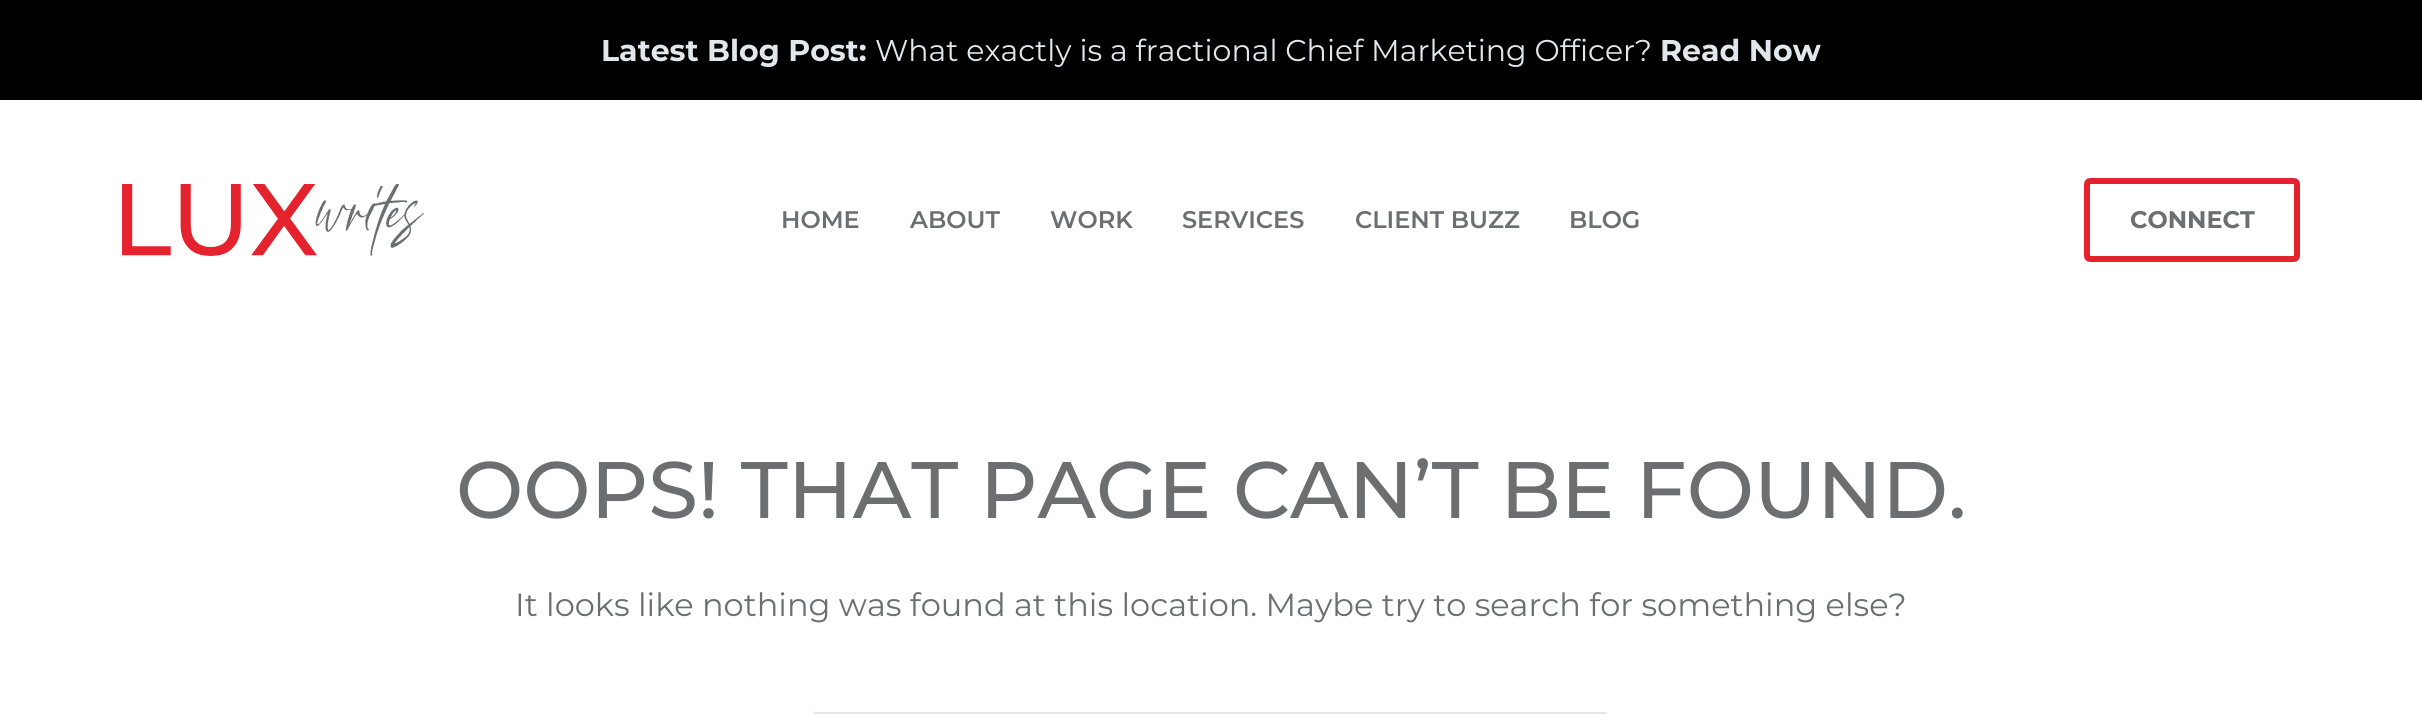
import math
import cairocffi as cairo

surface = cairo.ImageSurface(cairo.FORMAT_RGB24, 2422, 714)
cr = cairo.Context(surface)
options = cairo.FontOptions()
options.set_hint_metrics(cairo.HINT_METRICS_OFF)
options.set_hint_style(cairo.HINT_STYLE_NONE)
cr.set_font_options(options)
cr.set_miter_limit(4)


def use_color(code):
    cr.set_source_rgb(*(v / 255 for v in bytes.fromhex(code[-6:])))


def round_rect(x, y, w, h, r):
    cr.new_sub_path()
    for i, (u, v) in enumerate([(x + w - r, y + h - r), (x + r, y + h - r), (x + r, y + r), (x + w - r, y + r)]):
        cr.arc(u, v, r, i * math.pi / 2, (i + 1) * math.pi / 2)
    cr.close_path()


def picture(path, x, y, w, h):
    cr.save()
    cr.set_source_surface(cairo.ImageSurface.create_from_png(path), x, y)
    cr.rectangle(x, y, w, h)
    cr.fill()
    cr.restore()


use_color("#ffffff")
cr.paint()
use_color("#000000")
cr.rectangle(0, 0, 2422, 100)
cr.fill()
cr.select_font_face("Montserrat", cairo.FONT_SLANT_NORMAL, cairo.FONT_WEIGHT_BOLD)
cr.set_font_size(30)
use_color("#e1e8ed")
cr.move_to(601, 61)
cr.show_text("Latest Blog Post:")
cr.select_font_face("Montserrat")
cr.move_to(875, 61)
cr.show_text("What exactly is a fractional Chief Marketing Officer?")
cr.select_font_face("Montserrat", cairo.FONT_SLANT_NORMAL, cairo.FONT_WEIGHT_BOLD)
cr.move_to(1660, 61)
cr.show_text("Read Now")
picture("img1.png", 122, 184, 302, 72)
cr.select_font_face("Montserrat SemiBold")
cr.set_font_size(24)
use_color("#6d6e70")
cr.move_to(781, 228)
cr.show_text("HOME")
cr.move_to(910, 228)
cr.show_text("ABOUT")
cr.move_to(1050, 228)
cr.show_text("WORK")
cr.move_to(1182, 228)
cr.show_text("SERVICES")
cr.move_to(1355, 228)
cr.show_text("CLIENT BUZZ")
cr.move_to(1569, 228)
cr.show_text("BLOG")
round_rect(2087, 181, 210, 78, 3)
use_color("#e4232e")
cr.set_line_width(6)
cr.stroke()
cr.select_font_face("Montserrat", cairo.FONT_SLANT_NORMAL, cairo.FONT_WEIGHT_BOLD)
use_color("#6d6e70")
cr.move_to(2130, 228)
cr.show_text("CONNECT")
cr.select_font_face("Montserrat Medium")
cr.set_font_size(80)
cr.move_to(456, 518)
cr.show_text("OOPS! THAT PAGE CAN’T BE FOUND.")
cr.select_font_face("Montserrat")
cr.set_font_size(32)
cr.move_to(515, 616)
cr.show_text("It looks like nothing was found at this location. Maybe try to search for something else?")
use_color("#e1e8ed")
cr.set_fill_rule(cairo.FILL_RULE_EVEN_ODD)
cr.new_path()
cr.move_to(816, 712)
cr.line_to(1530, 712)
cr.line_to(1530, 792)
cr.line_to(816, 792)
cr.curve_to(813, 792, 810, 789, 810, 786)
cr.line_to(810, 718)
cr.curve_to(810, 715, 813, 712, 816, 712)
cr.close_path()
cr.move_to(816, 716)
cr.line_to(1530, 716)
cr.line_to(1530, 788)
cr.line_to(816, 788)
cr.line_to(814, 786)
cr.line_to(814, 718)
cr.curve_to(814, 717, 815, 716, 816, 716)
cr.close_path()
cr.fill()
cr.new_path()
cr.move_to(1530, 712)
cr.line_to(1604, 712)
cr.curve_to(1607, 712, 1610, 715, 1610, 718)
cr.line_to(1610, 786)
cr.curve_to(1610, 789, 1607, 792, 1604, 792)
cr.line_to(1530, 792)
cr.close_path()
cr.move_to(1530, 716)
cr.line_to(1604, 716)
cr.curve_to(1605, 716, 1606, 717, 1606, 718)
cr.line_to(1606, 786)
cr.curve_to(1606, 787, 1605, 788, 1604, 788)
cr.line_to(1530, 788)
cr.close_path()
cr.fill()
surface.write_to_png("result.png")
